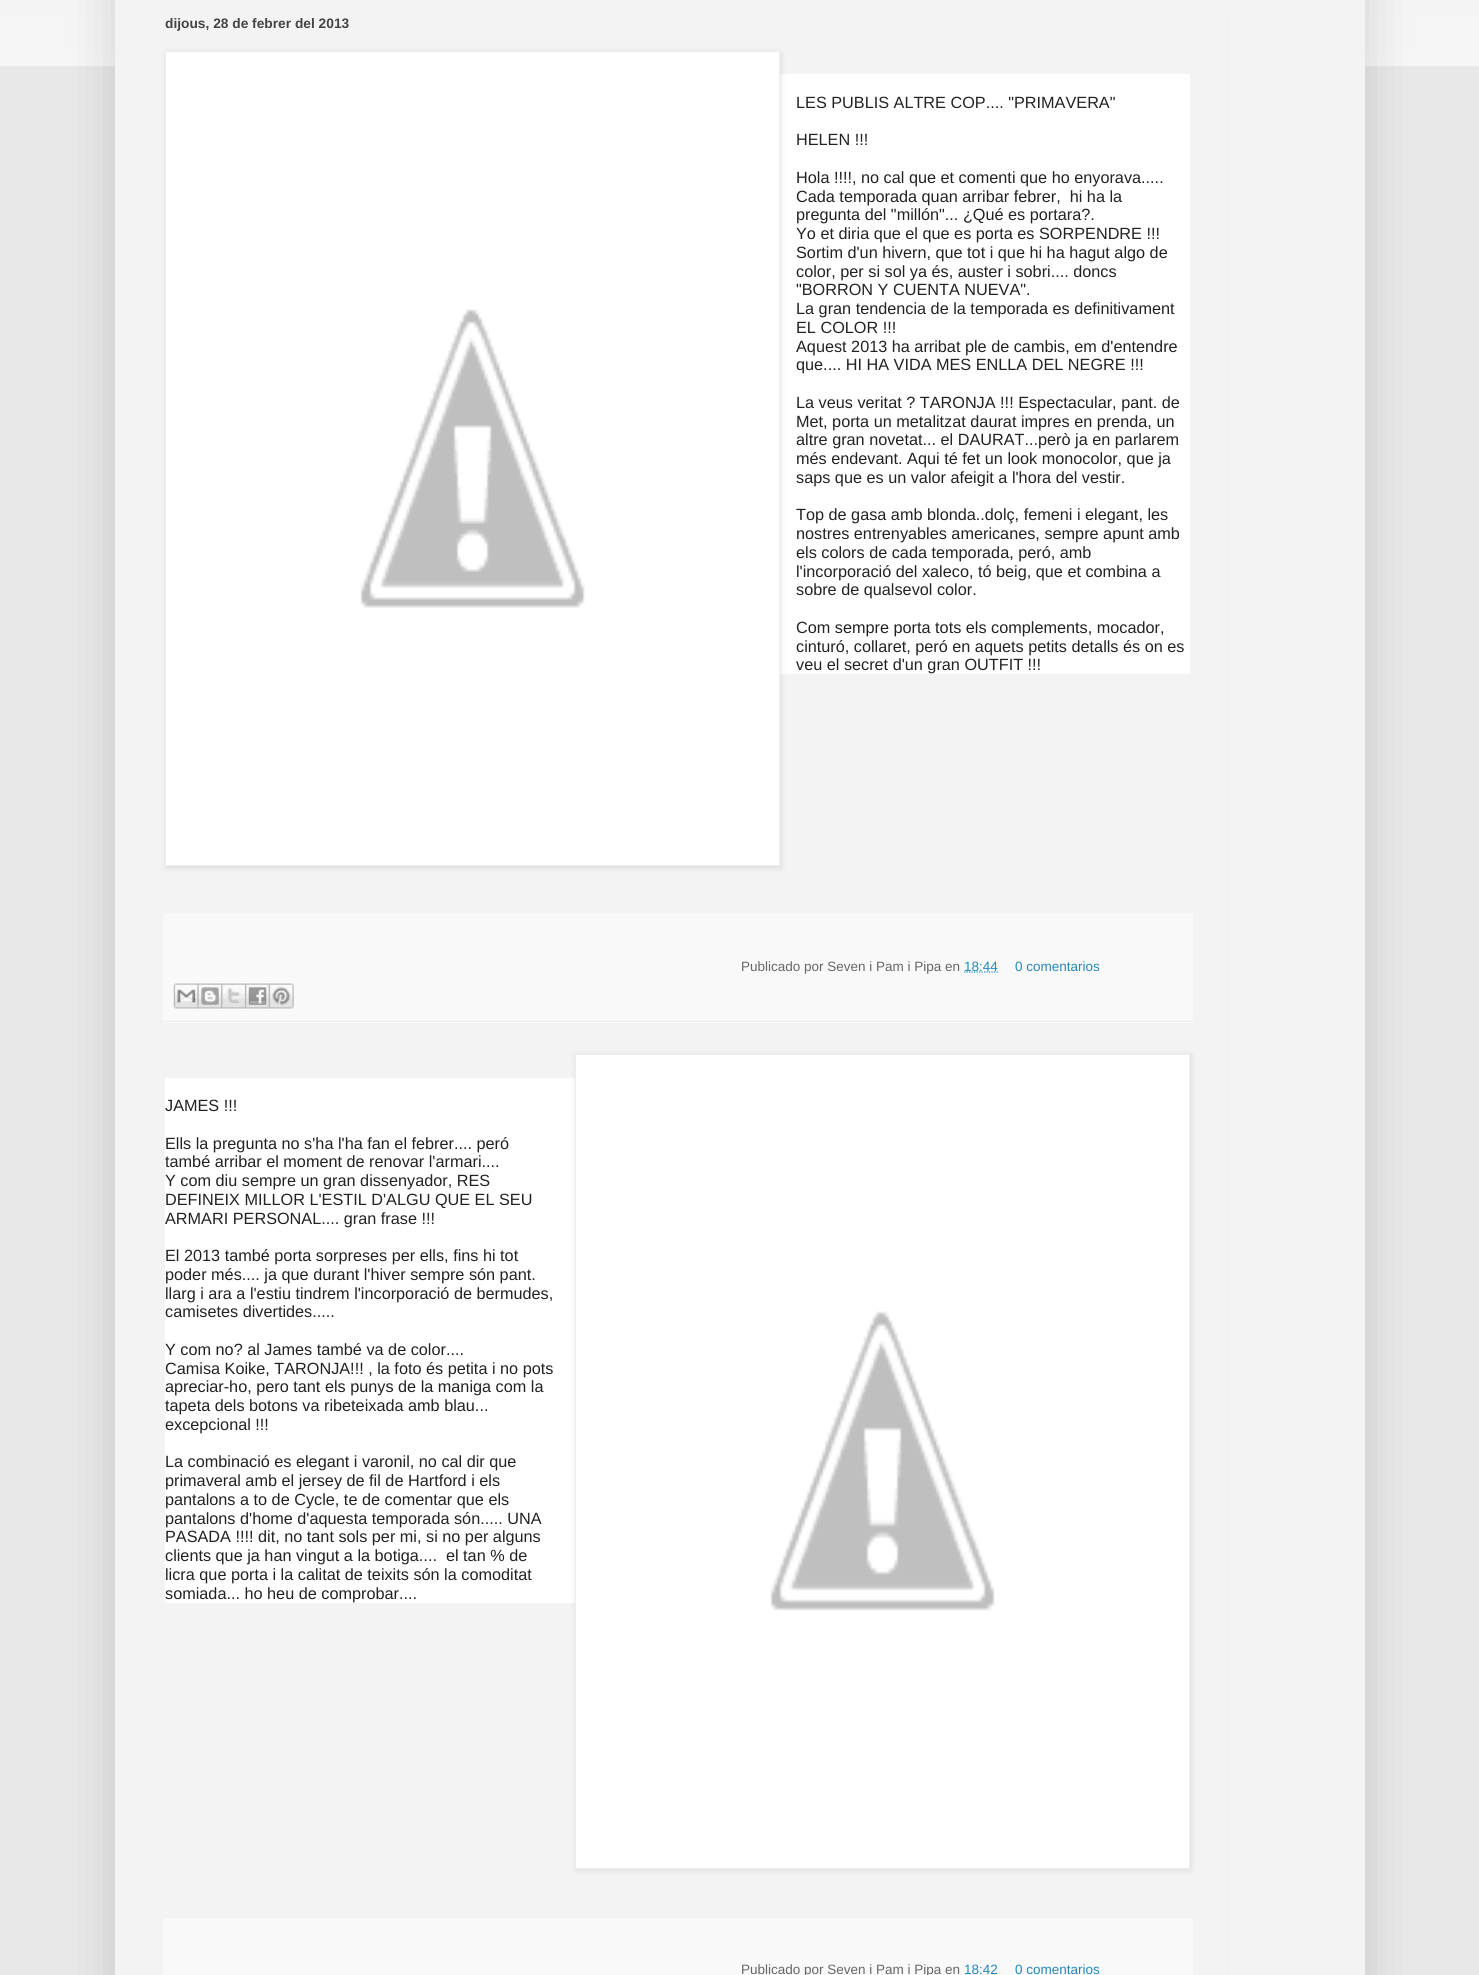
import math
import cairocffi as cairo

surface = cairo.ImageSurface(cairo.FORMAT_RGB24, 1479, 1975)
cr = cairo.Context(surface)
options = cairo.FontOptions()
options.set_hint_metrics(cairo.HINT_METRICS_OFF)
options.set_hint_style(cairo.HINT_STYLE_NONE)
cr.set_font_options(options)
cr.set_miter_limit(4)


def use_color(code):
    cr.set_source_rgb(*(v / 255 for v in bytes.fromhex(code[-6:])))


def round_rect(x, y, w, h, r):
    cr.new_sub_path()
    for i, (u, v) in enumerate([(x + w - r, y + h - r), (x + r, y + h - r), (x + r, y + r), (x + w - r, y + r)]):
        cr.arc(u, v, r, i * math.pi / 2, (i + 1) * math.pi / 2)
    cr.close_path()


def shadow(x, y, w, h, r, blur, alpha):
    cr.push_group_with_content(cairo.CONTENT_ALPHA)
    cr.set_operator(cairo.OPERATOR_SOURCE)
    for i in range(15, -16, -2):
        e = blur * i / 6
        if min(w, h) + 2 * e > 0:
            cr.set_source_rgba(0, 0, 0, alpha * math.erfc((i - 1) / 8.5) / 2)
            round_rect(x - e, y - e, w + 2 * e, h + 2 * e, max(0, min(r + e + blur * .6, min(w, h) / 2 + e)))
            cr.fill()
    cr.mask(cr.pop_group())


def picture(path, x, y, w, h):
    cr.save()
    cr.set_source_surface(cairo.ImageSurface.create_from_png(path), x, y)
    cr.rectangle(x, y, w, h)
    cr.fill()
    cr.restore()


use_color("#e8e8e8")
cr.paint()
picture("img1.png", 0, 0, 1479, 66)
use_color("#000000")
shadow(115, -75, 1250, 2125, 0, 25, 0.15)
use_color("#f3f3f3")
cr.rectangle(115, 0, 1250, 1975)
cr.fill()
cr.select_font_face("Liberation Sans", cairo.FONT_SLANT_NORMAL, cairo.FONT_WEIGHT_BOLD)
cr.set_font_size(13.75)
use_color("#444444")
cr.move_to(165, 28)
cr.show_text("dijous, 28 de febrer del 2013")
use_color("#ffffff")
cr.rectangle(780, 74, 410, 600)
cr.fill()
use_color("#000000")
shadow(166, 53, 615, 815, 0, 3, 0.1)
use_color("#ffffff")
cr.rectangle(165.5, 51.5, 614, 814)
cr.fill_preserve()
use_color("#eeeeee")
cr.set_line_width(1)
cr.stroke()
picture("img2.png", 360, 309, 225, 299)
cr.select_font_face("Liberation Sans")
cr.set_font_size(16.25)
use_color("#222222")
cr.move_to(796, 108)
cr.show_text("LES PUBLIS ALTRE COP.... \"PRIMAVERA\"")
cr.move_to(796, 145)
cr.show_text("HELEN !!!")
cr.move_to(796, 183)
cr.show_text("Hola !!!!, no cal que et comenti que ho enyorava.....")
cr.move_to(796, 202)
cr.show_text("Cada temporada quan arribar febrer,  hi ha la")
cr.move_to(796, 220)
cr.show_text("pregunta del \"millón\"... ¿Qué es portara?.")
cr.move_to(796, 239)
cr.show_text("Yo et diria que el que es porta es SORPENDRE !!!")
cr.move_to(796, 258)
cr.show_text("Sortim d'un hivern, que tot i que hi ha hagut algo de")
cr.move_to(796, 277)
cr.show_text("color, per si sol ya és, auster i sobri.... doncs")
cr.move_to(796, 295)
cr.show_text("\"BORRON Y CUENTA NUEVA\".")
cr.move_to(796, 314)
cr.show_text("La gran tendencia de la temporada es definitivament")
cr.move_to(796, 333)
cr.show_text("EL COLOR !!!")
cr.move_to(796, 352)
cr.show_text("Aquest 2013 ha arribat ple de cambis, em d'entendre")
cr.move_to(796, 370)
cr.show_text("que.... HI HA VIDA MES ENLLA DEL NEGRE !!!")
cr.move_to(796, 408)
cr.show_text("La veus veritat ? TARONJA !!! Espectacular, pant. de")
cr.move_to(796, 427)
cr.show_text("Met, porta un metalitzat daurat impres en prenda, un")
cr.move_to(796, 445)
cr.show_text("altre gran novetat... el DAURAT...però ja en parlarem")
cr.move_to(796, 464)
cr.show_text("més endevant. Aqui té fet un look monocolor, que ja")
cr.move_to(796, 483)
cr.show_text("saps que es un valor afeigit a l'hora del vestir.")
cr.move_to(796, 520)
cr.show_text("Top de gasa amb blonda..dolç, femeni i elegant, les")
cr.move_to(796, 539)
cr.show_text("nostres entrenyables americanes, sempre apunt amb")
cr.move_to(796, 558)
cr.show_text("els colors de cada temporada, peró, amb")
cr.move_to(796, 577)
cr.show_text("l'incorporació del xaleco, tó beig, que et combina a")
cr.move_to(796, 595)
cr.show_text("sobre de qualsevol color.")
cr.move_to(796, 633)
cr.show_text("Com sempre porta tots els complements, mocador,")
cr.move_to(796, 652)
cr.show_text("cinturó, collaret, peró en aquets petits detalls és on es")
cr.move_to(796, 670)
cr.show_text("veu el secret d'un gran OUTFIT !!!")
use_color("#f9f9f9")
cr.rectangle(163, 914, 1030, 109)
cr.fill()
use_color("#eeeeee")
cr.rectangle(163, 1021, 1030, 1)
cr.fill()
cr.set_font_size(13.5)
use_color("#666666")
cr.move_to(741, 971)
cr.show_text("Publicado por Seven i Pam i Pipa en")
cr.new_path()
cr.move_to(964, 972)
cr.line_to(998, 972)
use_color("#2288bb")
cr.set_line_width(1.2)
cr.set_dash([1.25, 1.25])
cr.stroke()
cr.move_to(964, 971)
cr.show_text("18:44")
cr.move_to(1015, 971)
cr.show_text("0 comentarios")
picture("img3.png", 173, 983, 26, 26)
picture("img4.png", 197, 983, 26, 26)
picture("img5.png", 221, 983, 26, 26)
picture("img6.png", 245, 983, 25, 26)
picture("img7.png", 268, 983, 26, 26)
use_color("#ffffff")
cr.rectangle(165, 1078, 410, 525)
cr.fill()
cr.set_font_size(16.25)
use_color("#222222")
cr.move_to(165, 1111)
cr.show_text("JAMES !!!")
use_color("#000000")
shadow(576, 1055, 615, 815, 0, 3, 0.1)
use_color("#ffffff")
cr.rectangle(575.5, 1054.5, 614, 814)
cr.fill_preserve()
use_color("#eeeeee")
cr.set_line_width(1)
cr.set_dash([])
cr.stroke()
picture("img8.png", 770, 1311, 225, 300)
use_color("#222222")
cr.move_to(165, 1149)
cr.show_text("Ells la pregunta no s'ha l'ha fan el febrer.... peró")
cr.move_to(165, 1167)
cr.show_text("també arribar el moment de renovar l'armari....")
cr.move_to(165, 1186)
cr.show_text("Y com diu sempre un gran dissenyador, RES")
cr.move_to(165, 1205)
cr.show_text("DEFINEIX MILLOR L'ESTIL D'ALGU QUE EL SEU")
cr.move_to(165, 1224)
cr.show_text("ARMARI PERSONAL.... gran frase !!!")
cr.move_to(165, 1261)
cr.show_text("El 2013 també porta sorpreses per ells, fins hi tot")
cr.move_to(165, 1280)
cr.show_text("poder més.... ja que durant l'hiver sempre són pant.")
cr.move_to(165, 1299)
cr.show_text("llarg i ara a l'estiu tindrem l'incorporació de bermudes,")
cr.move_to(165, 1317)
cr.show_text("camisetes divertides.....")
cr.move_to(165, 1355)
cr.show_text("Y com no? al James també va de color....")
cr.move_to(165, 1374)
cr.show_text("Camisa Koike, TARONJA!!! , la foto és petita i no pots")
cr.move_to(165, 1392)
cr.show_text("apreciar-ho, pero tant els punys de la maniga com la")
cr.move_to(165, 1411)
cr.show_text("tapeta dels botons va ribeteixada amb blau...")
cr.move_to(165, 1430)
cr.show_text("excepcional !!!")
cr.move_to(165, 1467)
cr.show_text("La combinació es elegant i varonil, no cal dir que")
cr.move_to(165, 1486)
cr.show_text("primaveral amb el jersey de fil de Hartford i els")
cr.move_to(165, 1505)
cr.show_text("pantalons a to de Cycle, te de comentar que els")
cr.move_to(165, 1524)
cr.show_text("pantalons d'home d'aquesta temporada són..... UNA")
cr.move_to(165, 1542)
cr.show_text("PASADA !!!! dit, no tant sols per mi, si no per alguns")
cr.move_to(165, 1561)
cr.show_text("clients que ja han vingut a la botiga....  el tan % de")
cr.move_to(165, 1580)
cr.show_text("licra que porta i la calitat de teixits són la comoditat")
cr.move_to(165, 1599)
cr.show_text("somiada... ho heu de comprobar....")
use_color("#f9f9f9")
cr.rectangle(163, 1918, 1030, 57)
cr.fill()
cr.set_font_size(13.5)
use_color("#666666")
cr.move_to(741, 1974)
cr.show_text("Publicado por Seven i Pam i Pipa en")
cr.new_path()
cr.move_to(964, 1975.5)
cr.line_to(998, 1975.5)
use_color("#2288bb")
cr.set_line_width(1.2)
cr.set_dash([1.25, 1.25])
cr.stroke()
cr.move_to(964, 1974)
cr.show_text("18:42")
cr.move_to(1015, 1974)
cr.show_text("0 comentarios")
use_color("#eeeeee")
cr.rectangle(1228, 16, 1, 1959)
cr.fill()
surface.write_to_png("result.png")
